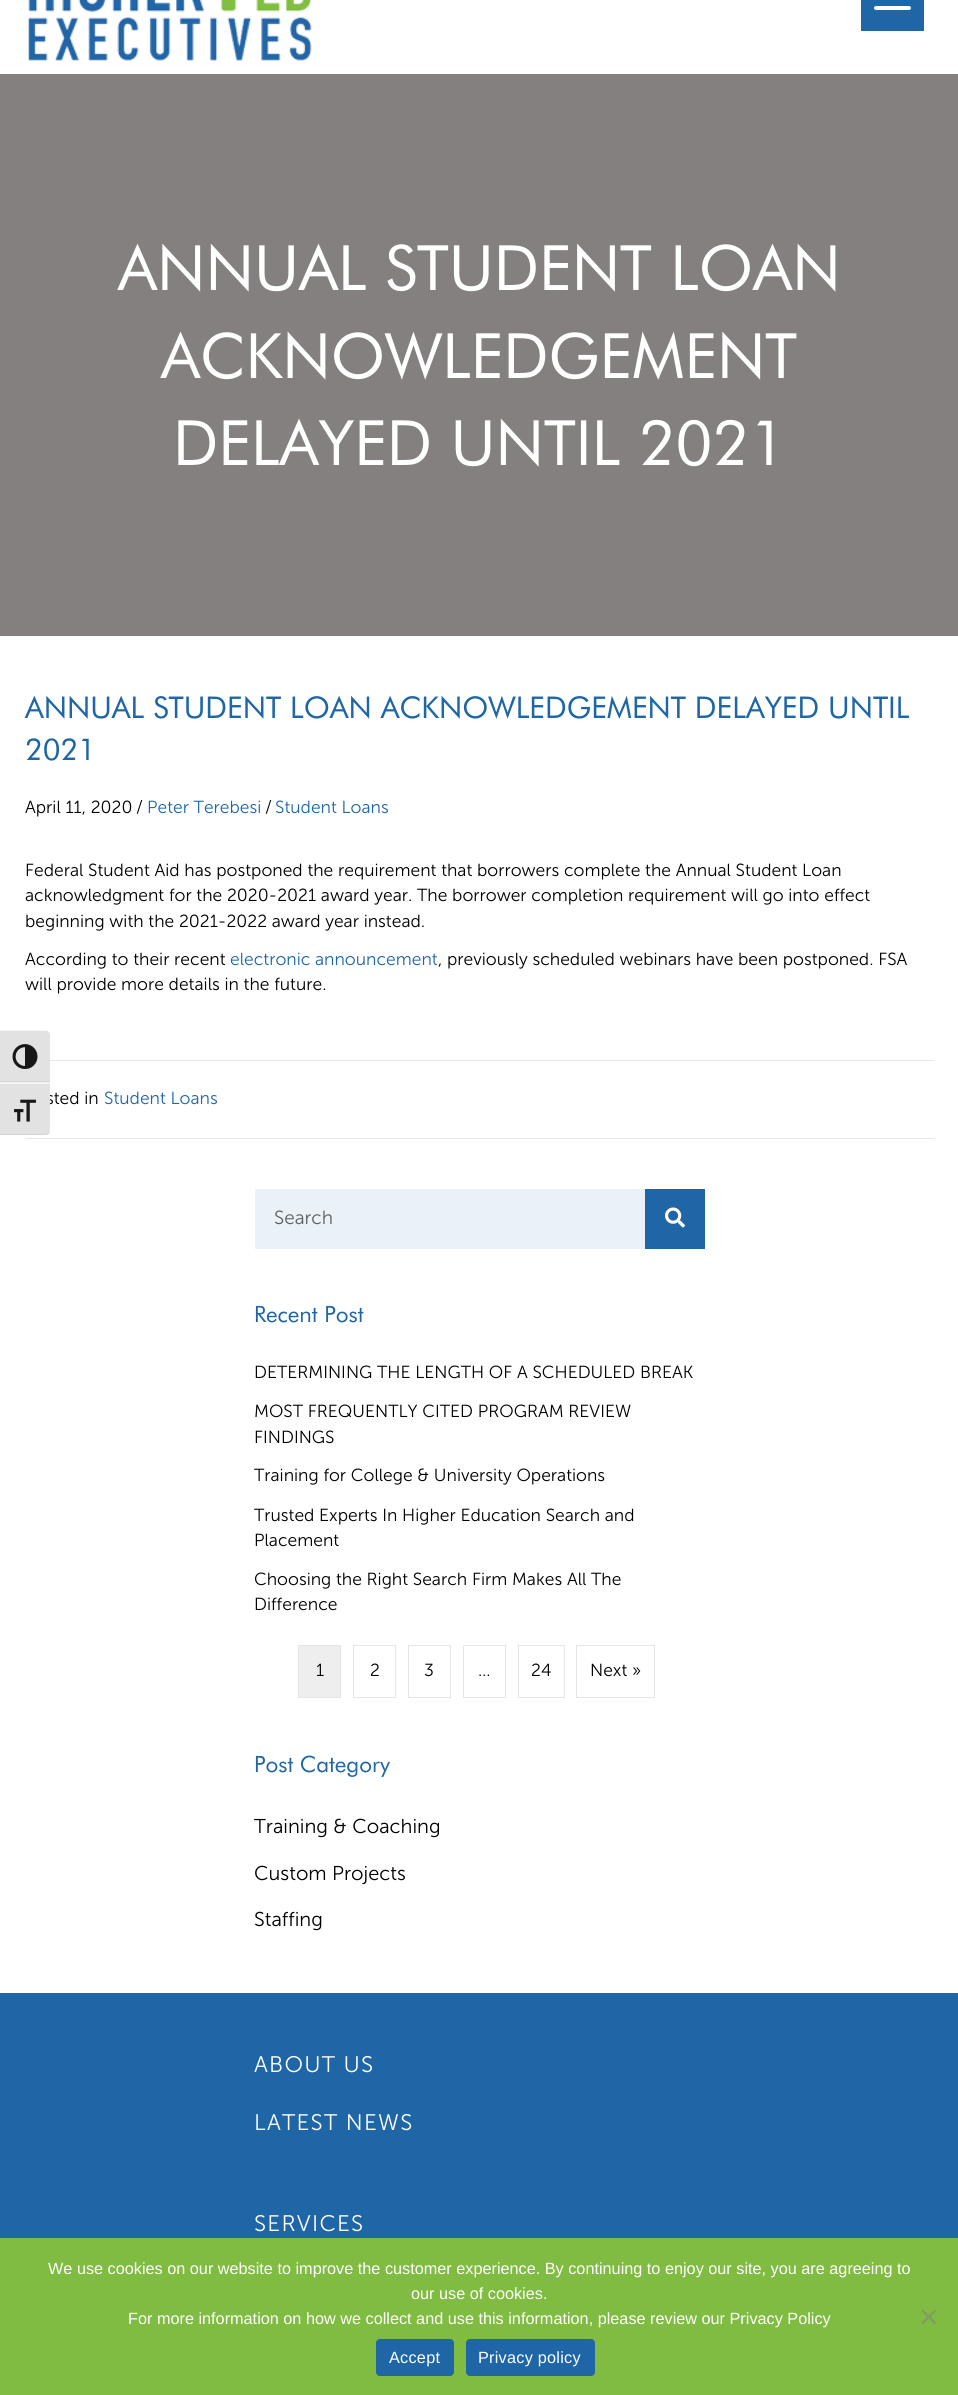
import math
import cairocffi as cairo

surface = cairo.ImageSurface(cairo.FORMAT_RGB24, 958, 2395)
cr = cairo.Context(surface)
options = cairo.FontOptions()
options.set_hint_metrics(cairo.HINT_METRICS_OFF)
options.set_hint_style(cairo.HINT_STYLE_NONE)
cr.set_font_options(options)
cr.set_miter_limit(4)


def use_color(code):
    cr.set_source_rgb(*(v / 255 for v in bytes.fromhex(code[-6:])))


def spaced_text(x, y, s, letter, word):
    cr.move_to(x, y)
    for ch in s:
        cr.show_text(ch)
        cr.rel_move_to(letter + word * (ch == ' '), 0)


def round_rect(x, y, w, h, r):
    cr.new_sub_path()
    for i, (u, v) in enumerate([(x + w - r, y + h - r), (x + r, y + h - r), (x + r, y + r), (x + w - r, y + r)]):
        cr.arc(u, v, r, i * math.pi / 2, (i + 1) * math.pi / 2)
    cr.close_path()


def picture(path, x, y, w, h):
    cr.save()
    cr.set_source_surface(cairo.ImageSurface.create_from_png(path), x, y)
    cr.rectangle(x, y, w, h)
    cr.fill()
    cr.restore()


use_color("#ffffff")
cr.paint()
picture("img1.png", 28, 0, 284, 61)
use_color("#1f66a6")
cr.rectangle(861, 0, 63, 31)
cr.fill()
use_color("#ffffff")
round_rect(874, 6, 37, 4, 2)
cr.fill()
use_color("#858080")
cr.rectangle(0, 74, 958, 562)
cr.fill()
cr.select_font_face("Futura")
cr.set_font_size(62.5)
use_color("#ffffff")
cr.move_to(118, 290)
cr.show_text("ANNUAL STUDENT LOAN")
cr.move_to(161, 378)
cr.show_text("ACKNOWLEDGEMENT")
cr.move_to(173, 465)
cr.show_text("DELAYED UNTIL 2021")
cr.set_font_size(30)
use_color("#1f66a6")
cr.move_to(25, 718)
cr.show_text("ANNUAL STUDENT LOAN ACKNOWLEDGEMENT DELAYED UNTIL")
cr.move_to(25, 760)
cr.show_text("2021")
cr.select_font_face("Museo Sans Light")
cr.set_font_size(17.5)
use_color("#000000")
cr.move_to(25, 813)
cr.show_text("April 11, 2020")
cr.move_to(136, 813)
cr.show_text("/")
use_color("#1f66a6")
cr.move_to(147, 813)
cr.show_text("Peter Terebesi")
use_color("#000000")
cr.move_to(265, 813)
cr.show_text("/")
use_color("#1f66a6")
cr.move_to(275, 813)
cr.show_text("Student Loans")
use_color("#000000")
cr.move_to(25, 876)
cr.show_text("Federal Student Aid has postponed the requirement that borrowers complete the Annual Student Loan")
cr.move_to(25, 901)
cr.show_text("acknowledgment for the 2020-2021 award year. The borrower completion requirement will go into effect")
cr.move_to(25, 927)
cr.show_text("beginning with the 2021-2022 award year instead.")
cr.move_to(25, 965)
cr.show_text("According to their recent")
use_color("#1f66a6")
cr.move_to(230, 965)
cr.show_text("electronic announcement")
use_color("#000000")
cr.move_to(438, 965)
cr.show_text(", previously scheduled webinars have been postponed. FSA")
cr.move_to(25, 990)
cr.show_text("will provide more details in the future.")
use_color("#e8e8e8")
cr.rectangle(50, 1060, 884, 1)
cr.fill()
use_color("#000000")
cr.move_to(46, 1104)
cr.show_text("sted in")
use_color("#1f66a6")
cr.move_to(104, 1104)
cr.show_text("Student Loans")
use_color("#e8e8e8")
cr.rectangle(25, 1138, 909, 1)
cr.fill()
use_color("#eaf1f7")
cr.rectangle(255, 1189, 390, 60)
cr.fill()
cr.set_font_size(19)
use_color("#5e6063")
cr.move_to(274, 1224)
cr.show_text("Search")
use_color("#1f66a6")
cr.rectangle(645, 1189, 60, 60)
cr.fill()
picture("img2.png", 665, 1207, 20, 21)
cr.select_font_face("Futura")
cr.set_font_size(22.5)
cr.move_to(254, 1322)
cr.show_text("Recent Post")
cr.select_font_face("Museo Sans Light")
cr.set_font_size(17.5)
use_color("#000000")
cr.move_to(254, 1378)
cr.show_text("DETERMINING THE LENGTH OF A SCHEDULED BREAK")
cr.move_to(254, 1417)
cr.show_text("MOST FREQUENTLY CITED PROGRAM REVIEW")
cr.move_to(254, 1443)
cr.show_text("FINDINGS")
cr.move_to(254, 1481)
cr.show_text("Training for College & University Operations")
cr.move_to(254, 1521)
cr.show_text("Trusted Experts In Higher Education Search and")
cr.move_to(254, 1546)
cr.show_text("Placement")
cr.move_to(254, 1585)
cr.show_text("Choosing the Right Search Firm Makes All The")
cr.move_to(254, 1610)
cr.show_text("Difference")
use_color("#eeeeee")
cr.rectangle(298.5, 1645.5, 42, 52)
cr.fill_preserve()
use_color("#e6e6e6")
cr.set_line_width(1)
cr.stroke()
use_color("#000000")
cr.move_to(316, 1676)
cr.show_text("1")
cr.rectangle(353.5, 1645.5, 42, 52)
use_color("#e6e6e6")
cr.stroke()
use_color("#000000")
cr.move_to(370, 1676)
cr.show_text("2")
cr.rectangle(408.5, 1645.5, 42, 52)
use_color("#e6e6e6")
cr.stroke()
use_color("#000000")
cr.move_to(424, 1676)
cr.show_text("3")
cr.rectangle(463.5, 1645.5, 42, 52)
use_color("#e6e6e6")
cr.stroke()
use_color("#000000")
cr.move_to(478, 1676)
cr.show_text("…")
cr.rectangle(518.5, 1645.5, 46, 52)
use_color("#e6e6e6")
cr.stroke()
use_color("#000000")
cr.move_to(531, 1676)
cr.show_text("24")
cr.rectangle(576.5, 1645.5, 78, 52)
use_color("#e6e6e6")
cr.stroke()
use_color("#000000")
cr.move_to(590, 1676)
cr.show_text("Next »")
cr.select_font_face("Futura")
cr.set_font_size(22.5)
use_color("#1f66a6")
cr.move_to(254, 1772)
cr.show_text("Post Category")
cr.select_font_face("Museo Sans Light")
cr.set_font_size(20)
use_color("#000000")
cr.move_to(254, 1833)
cr.show_text("Training & Coaching")
cr.move_to(254, 1880)
cr.show_text("Custom Projects")
cr.move_to(254, 1926)
cr.show_text("Staffing")
use_color("#1f66a6")
cr.rectangle(0, 1993, 958, 245)
cr.fill()
cr.set_font_size(22.5)
use_color("#ffffff")
spaced_text(254, 2072, "ABOUT US", 1.25, 0)
spaced_text(254, 2130, "LATEST NEWS", 1.25, 0)
spaced_text(254, 2231, "SERVICES", 1.25, 0)
use_color("#e2e2e2")
cr.new_path()
cr.move_to(0, 1030)
cr.line_to(45, 1030)
cr.curve_to(48, 1030, 50, 1032, 50, 1035)
cr.line_to(50, 1083)
cr.line_to(0, 1083)
cr.close_path()
cr.fill()
use_color("#f5f5f5")
cr.new_path()
cr.move_to(0, 1030)
cr.line_to(0, 1031)
cr.line_to(45, 1031)
cr.curve_to(48, 1031, 50, 1033, 50, 1035)
cr.curve_to(50, 1032, 48, 1030, 45, 1030)
cr.close_path()
cr.fill()
use_color("#d2d2d2")
cr.rectangle(0, 1081, 50, 1)
cr.fill()
picture("img3.png", 12, 1044, 26, 25)
use_color("#e2e2e2")
cr.new_path()
cr.move_to(0, 1083)
cr.line_to(50, 1083)
cr.line_to(50, 1130)
cr.curve_to(50, 1133, 48, 1135, 45, 1135)
cr.line_to(0, 1135)
cr.close_path()
cr.fill()
use_color("#f5f5f5")
cr.rectangle(0, 1082, 50, 2)
cr.fill()
use_color("#d2d2d2")
cr.new_path()
cr.move_to(0, 1134)
cr.line_to(0, 1135)
cr.line_to(45, 1135)
cr.curve_to(48, 1135, 50, 1133, 50, 1130)
cr.curve_to(50, 1132, 48, 1134, 45, 1134)
cr.close_path()
cr.fill()
picture("img4.png", 14, 1099, 22, 23)
use_color("#80bc42")
cr.rectangle(0, 2238, 958, 157)
cr.fill()
cr.select_font_face("Liberation Sans")
cr.set_font_size(16.25)
use_color("#ffffff")
cr.move_to(48, 2274)
cr.show_text("We use cookies on our website to improve the customer experience. By continuing to enjoy our site, you are agreeing to")
cr.move_to(411, 2299)
cr.show_text("our use of cookies.")
cr.move_to(128, 2324)
cr.show_text("For more information on how we collect and use this information, please review our Privacy Policy")
use_color("#809e61")
cr.new_path()
cr.move_to(934.5, 2309.5)
cr.line_to(936.5, 2311)
cr.line_to(923, 2324.5)
cr.line_to(921, 2322.5)
cr.close_path()
cr.fill()
cr.new_path()
cr.move_to(921, 2311)
cr.line_to(923, 2309.5)
cr.line_to(936.5, 2322.5)
cr.line_to(934.5, 2324.5)
cr.close_path()
cr.fill()
use_color("#1f66a6")
round_rect(376, 2339, 78, 37, 4)
cr.fill()
use_color("#ffffff")
spaced_text(389, 2363, "Accept", 0.25, 0)
use_color("#1f66a6")
round_rect(466, 2339, 129, 37, 4)
cr.fill()
use_color("#ffffff")
spaced_text(478, 2363, "Privacy policy", 0.25, 0)
surface.write_to_png("result.png")
